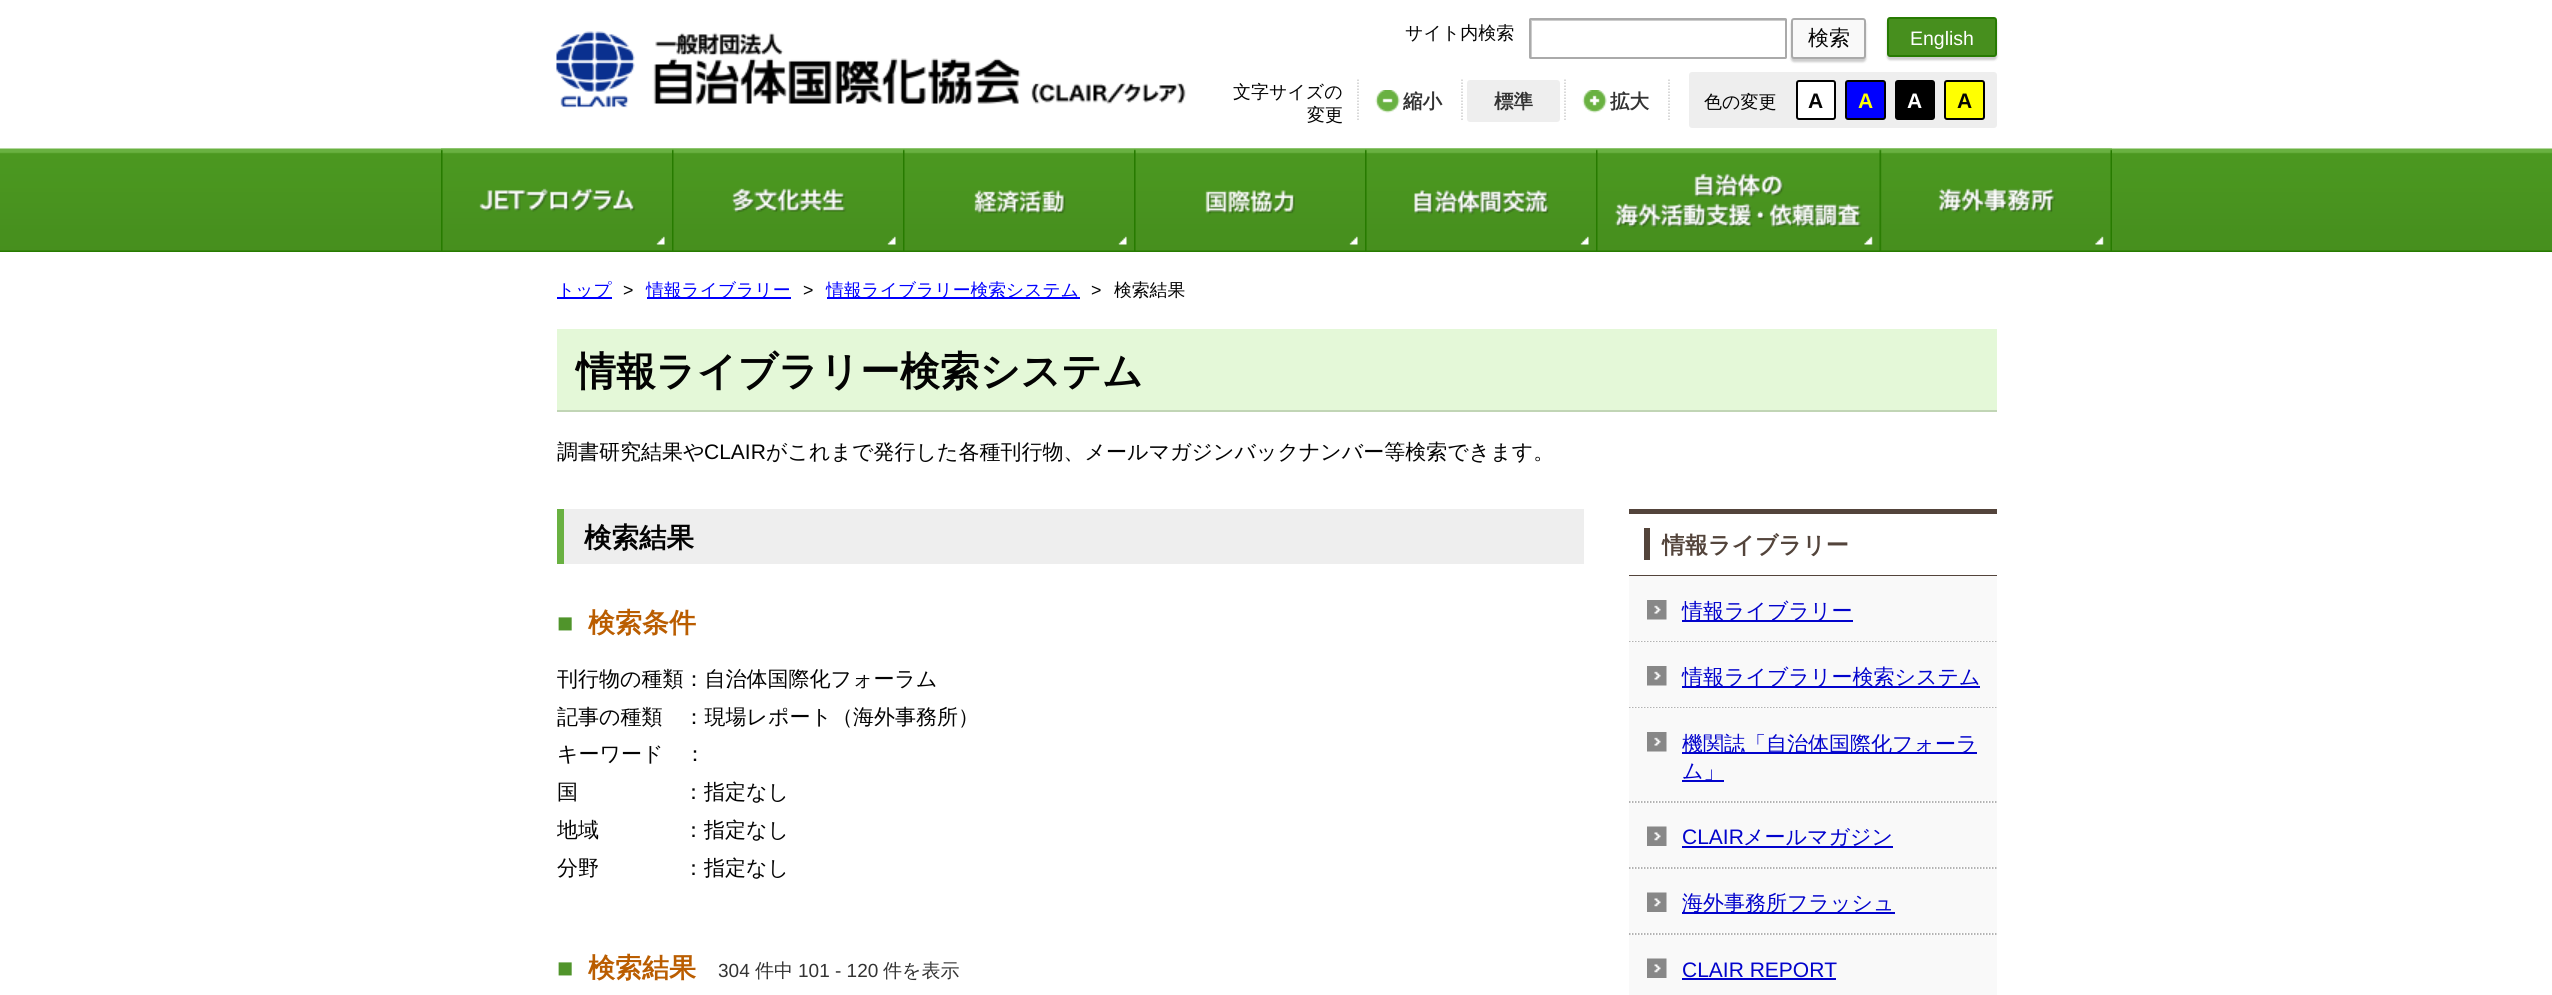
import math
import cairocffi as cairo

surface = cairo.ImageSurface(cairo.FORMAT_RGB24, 2552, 995)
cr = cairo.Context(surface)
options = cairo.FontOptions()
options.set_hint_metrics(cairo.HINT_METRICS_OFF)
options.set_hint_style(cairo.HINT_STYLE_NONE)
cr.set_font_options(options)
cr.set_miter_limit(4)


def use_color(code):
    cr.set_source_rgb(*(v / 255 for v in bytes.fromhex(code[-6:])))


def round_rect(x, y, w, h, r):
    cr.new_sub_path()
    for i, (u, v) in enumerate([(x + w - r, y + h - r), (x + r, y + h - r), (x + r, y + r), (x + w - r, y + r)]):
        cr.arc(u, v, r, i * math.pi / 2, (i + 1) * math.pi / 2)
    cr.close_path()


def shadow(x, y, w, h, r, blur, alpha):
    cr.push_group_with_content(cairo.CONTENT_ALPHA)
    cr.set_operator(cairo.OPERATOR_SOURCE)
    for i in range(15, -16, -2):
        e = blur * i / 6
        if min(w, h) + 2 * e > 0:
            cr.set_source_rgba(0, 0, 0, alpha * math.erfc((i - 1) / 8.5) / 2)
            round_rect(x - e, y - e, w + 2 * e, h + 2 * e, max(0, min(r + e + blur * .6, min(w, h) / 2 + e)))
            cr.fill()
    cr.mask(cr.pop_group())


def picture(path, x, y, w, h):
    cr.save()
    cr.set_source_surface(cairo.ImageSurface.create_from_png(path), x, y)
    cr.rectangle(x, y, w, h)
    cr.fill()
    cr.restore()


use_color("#ffffff")
cr.paint()
picture("img1.png", 0, 148, 2552, 104)
picture("img2.png", 556, 31, 630, 77)
cr.select_font_face("WenQuanYi Zen Hei Medium")
cr.set_font_size(18)
use_color("#030303")
cr.move_to(1405, 39)
cr.show_text("サイト内検索")
cr.save()
cr.rectangle(1530, 20, 255, 37)
cr.clip()
use_color("#cccccc")
cr.set_fill_rule(cairo.FILL_RULE_EVEN_ODD)
cr.new_path()
cr.move_to(1382, -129)
cr.line_to(1934, -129)
cr.line_to(1934, 206)
cr.line_to(1382, 206)
cr.close_path()
cr.move_to(1532, 21)
cr.line_to(1786, 21)
cr.line_to(1786, 58)
cr.line_to(1532, 58)
cr.close_path()
cr.fill()
cr.restore()
round_rect(1530, 19, 256, 39, 0.5)
use_color("#aaaaaa")
cr.stroke()
use_color("#000000")
shadow(1791, 21, 75, 41, 3, 1, 0.2)
use_color("#f9f9f9")
round_rect(1792, 19, 73, 39, 2)
cr.fill_preserve()
use_color("#aaaaaa")
cr.stroke()
cr.set_font_size(21)
use_color("#030303")
cr.move_to(1808, 45)
cr.show_text("検索")
use_color("#000000")
shadow(1887, 20, 110, 40, 3, 1, 0.2)
use_color("#478f1e")
round_rect(1888, 18, 108, 38, 2)
cr.fill_preserve()
use_color("#277b02")
cr.stroke()
cr.select_font_face("Liberation Sans")
cr.set_font_size(19.5)
use_color("#ffffff")
cr.move_to(1910, 45)
cr.show_text("English")
cr.select_font_face("WenQuanYi Zen Hei Medium")
cr.set_font_size(18)
use_color("#030303")
cr.move_to(1233, 98)
cr.show_text("文字サイズの")
cr.move_to(1307, 121)
cr.show_text("変更")
cr.new_path()
cr.move_to(1358, 79.5)
cr.line_to(1358, 121.5)
use_color("#cccccc")
cr.set_line_width(1.5)
cr.set_dash([1.5, 1.5])
cr.stroke()
cr.new_path()
cr.move_to(1462, 79.5)
cr.line_to(1462, 121.5)
cr.stroke()
picture("img3.png", 1375, 90, 25, 23)
cr.select_font_face("WenQuanYi Zen Hei", cairo.FONT_SLANT_NORMAL, cairo.FONT_WEIGHT_BOLD)
cr.set_font_size(19.5)
use_color("#333333")
cr.move_to(1403, 108)
cr.show_text("縮小")
cr.new_path()
cr.move_to(1565, 79.5)
cr.line_to(1565, 121.5)
use_color("#cccccc")
cr.stroke()
use_color("#eeeeee")
round_rect(1467, 80, 93, 42, 3)
cr.fill()
use_color("#333333")
cr.move_to(1494, 108)
cr.show_text("標準")
cr.new_path()
cr.move_to(1669, 79.5)
cr.line_to(1669, 121.5)
use_color("#cccccc")
cr.stroke()
picture("img4.png", 1582, 90, 25, 23)
use_color("#333333")
cr.move_to(1610, 108)
cr.show_text("拡大")
use_color("#eeeeee")
round_rect(1689, 72, 308, 56, 3)
cr.fill()
cr.select_font_face("WenQuanYi Zen Hei Medium")
cr.set_font_size(18)
use_color("#030303")
cr.move_to(1704, 108)
cr.show_text("色の変更")
use_color("#ffffff")
round_rect(1797, 81, 38, 38, 2)
cr.fill_preserve()
use_color("#000000")
cr.set_line_width(2)
cr.set_dash([])
cr.stroke()
cr.select_font_face("Liberation Sans", cairo.FONT_SLANT_NORMAL, cairo.FONT_WEIGHT_BOLD)
cr.set_font_size(21)
use_color("#030303")
cr.move_to(1808, 108)
cr.show_text("A")
use_color("#0000ff")
round_rect(1846, 81, 39, 38, 2)
cr.fill_preserve()
use_color("#000000")
cr.stroke()
use_color("#ffff01")
cr.move_to(1858, 108)
cr.show_text("A")
use_color("#000000")
round_rect(1896, 81, 38, 38, 2)
cr.fill_preserve()
cr.stroke()
use_color("#ffffff")
cr.move_to(1907, 108)
cr.show_text("A")
use_color("#ffff01")
round_rect(1945, 81, 39, 38, 2)
cr.fill_preserve()
use_color("#000000")
cr.stroke()
use_color("#030303")
cr.move_to(1957, 108)
cr.show_text("A")
picture("img5.png", 441, 148, 231, 103)
picture("img6.png", 672, 148, 231, 103)
picture("img7.png", 903, 148, 231, 103)
picture("img8.png", 1134, 148, 231, 103)
picture("img9.png", 1365, 148, 231, 103)
picture("img10.png", 1596, 148, 284, 103)
picture("img11.png", 1879, 148, 233, 103)
use_color("#0000ff")
cr.rectangle(557, 297, 55, 2)
cr.fill()
cr.select_font_face("WenQuanYi Zen Hei Medium")
cr.set_font_size(17.8)
cr.move_to(557, 296)
cr.show_text("トップ")
cr.select_font_face("Liberation Sans")
use_color("#030303")
cr.move_to(623, 296)
cr.show_text(">")
use_color("#0000ff")
cr.rectangle(647, 297, 144, 2)
cr.fill()
cr.select_font_face("WenQuanYi Zen Hei Medium")
cr.move_to(646, 296)
cr.show_text("情報ライブラリー")
cr.select_font_face("Liberation Sans")
use_color("#030303")
cr.move_to(803, 296)
cr.show_text(">")
use_color("#0000ff")
cr.rectangle(827, 297, 253, 2)
cr.fill()
cr.select_font_face("WenQuanYi Zen Hei Medium")
cr.move_to(826, 296)
cr.show_text("情報ライブラリー検索システム")
cr.select_font_face("Liberation Sans")
use_color("#030303")
cr.move_to(1091, 296)
cr.show_text(">")
cr.select_font_face("WenQuanYi Zen Hei Medium")
cr.move_to(1114, 296)
cr.show_text("検索結果")
use_color("#e4f8d8")
cr.rectangle(557, 329, 1440, 81)
cr.fill()
use_color("#c1d5b5")
cr.rectangle(557, 410, 1440, 2)
cr.fill()
cr.select_font_face("WenQuanYi Zen Hei", cairo.FONT_SLANT_NORMAL, cairo.FONT_WEIGHT_BOLD)
cr.set_font_size(39.9)
use_color("#030303")
cr.move_to(576, 385)
cr.show_text("情報ライブラリー検索システム")
cr.select_font_face("WenQuanYi Zen Hei Medium")
cr.set_font_size(21)
cr.move_to(557, 459)
cr.show_text("調書研究結果や")
cr.select_font_face("Liberation Sans")
cr.move_to(704, 459)
cr.show_text("CLAIR")
cr.select_font_face("WenQuanYi Zen Hei Medium")
cr.move_to(766, 459)
cr.show_text("がこれまで発行した各種刊行物、メールマガジンバックナンバー等検索できます。")
use_color("#eeeeee")
cr.rectangle(564, 509, 1020, 55)
cr.fill()
use_color("#69b141")
cr.rectangle(557, 509, 7, 55)
cr.fill()
cr.select_font_face("WenQuanYi Zen Hei", cairo.FONT_SLANT_NORMAL, cairo.FONT_WEIGHT_BOLD)
cr.set_font_size(27.5)
use_color("#030303")
cr.move_to(584, 547)
cr.show_text("検索結果")
cr.select_font_face("Liberation Sans", cairo.FONT_SLANT_NORMAL, cairo.FONT_WEIGHT_BOLD)
cr.set_font_size(27)
use_color("#50942b")
cr.move_to(557, 632)
cr.show_text("■")
cr.select_font_face("WenQuanYi Zen Hei", cairo.FONT_SLANT_NORMAL, cairo.FONT_WEIGHT_BOLD)
use_color("#ba5d00")
cr.move_to(588, 632)
cr.show_text("検索条件")
cr.select_font_face("WenQuanYi Zen Hei Medium")
cr.set_font_size(21)
use_color("#030303")
cr.move_to(557, 686)
cr.show_text("刊行物の種類：自治体国際化フォーラム")
cr.move_to(557, 724)
cr.show_text("記事の種類　：現場レポート（海外事務所）")
cr.move_to(557, 761)
cr.show_text("キーワード　：")
cr.move_to(557, 799)
cr.show_text("国　　　　　：指定なし")
cr.save()
cr.rectangle(557, 660, 1027, 227)
cr.clip()
cr.move_to(557, 837)
cr.show_text("地域　　　　：")
cr.restore()
cr.move_to(704, 837)
cr.show_text("指定なし")
cr.move_to(557, 875)
cr.show_text("分野　　　　：指定なし")
cr.select_font_face("Liberation Sans", cairo.FONT_SLANT_NORMAL, cairo.FONT_WEIGHT_BOLD)
cr.set_font_size(27)
use_color("#50942b")
cr.move_to(557, 977)
cr.show_text("■")
cr.select_font_face("WenQuanYi Zen Hei", cairo.FONT_SLANT_NORMAL, cairo.FONT_WEIGHT_BOLD)
use_color("#ba5d00")
cr.move_to(588, 977)
cr.show_text("検索結果")
cr.select_font_face("Liberation Sans")
cr.set_font_size(19)
use_color("#333333")
cr.move_to(718, 977)
cr.show_text("304")
cr.select_font_face("WenQuanYi Zen Hei Medium")
cr.move_to(755, 977)
cr.show_text("件中")
cr.select_font_face("Liberation Sans")
cr.move_to(798, 977)
cr.show_text("101 - 120")
cr.select_font_face("WenQuanYi Zen Hei Medium")
cr.move_to(883, 977)
cr.show_text("件を表示")
use_color("#53443b")
cr.rectangle(1629, 509, 368, 5)
cr.fill()
cr.rectangle(1629, 575, 368, 1)
cr.fill()
cr.rectangle(1644, 528, 6, 32)
cr.fill()
cr.select_font_face("WenQuanYi Zen Hei", cairo.FONT_SLANT_NORMAL, cairo.FONT_WEIGHT_BOLD)
cr.set_font_size(23)
cr.move_to(1662, 553)
cr.show_text("情報ライブラリー")
cr.new_path()
cr.move_to(1629, 641)
cr.line_to(1996.5, 641)
use_color("#999999")
cr.set_line_width(1.5)
cr.set_dash([1.5, 1.5])
cr.stroke()
use_color("#f9f9f9")
cr.rectangle(1629, 576, 368, 65)
cr.fill()
picture("img12.png", 1647, 600, 20, 20)
use_color("#0203cc")
cr.rectangle(1682, 620, 171, 2)
cr.fill()
cr.select_font_face("WenQuanYi Zen Hei Medium")
cr.set_font_size(21)
cr.move_to(1682, 618)
cr.show_text("情報ライブラリー")
cr.new_path()
cr.move_to(1629, 707)
cr.line_to(1996.5, 707)
use_color("#999999")
cr.stroke()
use_color("#f9f9f9")
cr.rectangle(1629, 642, 368, 65)
cr.fill()
picture("img12.png", 1647, 666, 20, 20)
use_color("#0203cc")
cr.rectangle(1682, 686, 298, 2)
cr.fill()
cr.move_to(1682, 684)
cr.show_text("情報ライブラリー検索システム")
cr.new_path()
cr.move_to(1629, 802)
cr.line_to(1996.5, 802)
use_color("#999999")
cr.stroke()
use_color("#f9f9f9")
cr.rectangle(1629, 708, 368, 93)
cr.fill()
picture("img12.png", 1647, 732, 20, 20)
use_color("#0203cc")
cr.rectangle(1682, 752, 295, 2)
cr.fill()
cr.move_to(1682, 751)
cr.show_text("機関誌「自治体国際化フォーラ")
cr.move_to(1682, 778)
cr.show_text("ム」")
cr.rectangle(1682, 780, 42, 2)
cr.fill()
cr.new_path()
cr.move_to(1629, 868)
cr.line_to(1996.5, 868)
use_color("#999999")
cr.stroke()
use_color("#f9f9f9")
cr.rectangle(1629, 803, 368, 64)
cr.fill()
picture("img13.png", 1647, 826, 20, 20)
cr.select_font_face("Liberation Sans")
use_color("#0203cc")
cr.move_to(1682, 844)
cr.show_text("CLAIR")
cr.rectangle(1682, 846, 211, 2)
cr.fill()
cr.select_font_face("WenQuanYi Zen Hei Medium")
cr.move_to(1743, 844)
cr.show_text("メールマガジン")
cr.new_path()
cr.move_to(1629, 934)
cr.line_to(1996.5, 934)
use_color("#999999")
cr.stroke()
use_color("#f9f9f9")
cr.rectangle(1629, 869, 368, 64)
cr.fill()
picture("img13.png", 1647, 892, 20, 20)
use_color("#0203cc")
cr.rectangle(1682, 912, 213, 2)
cr.fill()
cr.move_to(1682, 910)
cr.show_text("海外事務所フラッシュ")
use_color("#f9f9f9")
cr.rectangle(1629, 935, 368, 60)
cr.fill()
picture("img13.png", 1647, 958, 20, 20)
cr.select_font_face("Liberation Sans")
use_color("#0203cc")
cr.move_to(1682, 977)
cr.show_text("CLAIR REPORT")
cr.rectangle(1682, 978, 154, 2)
cr.fill()
surface.write_to_png("result.png")
